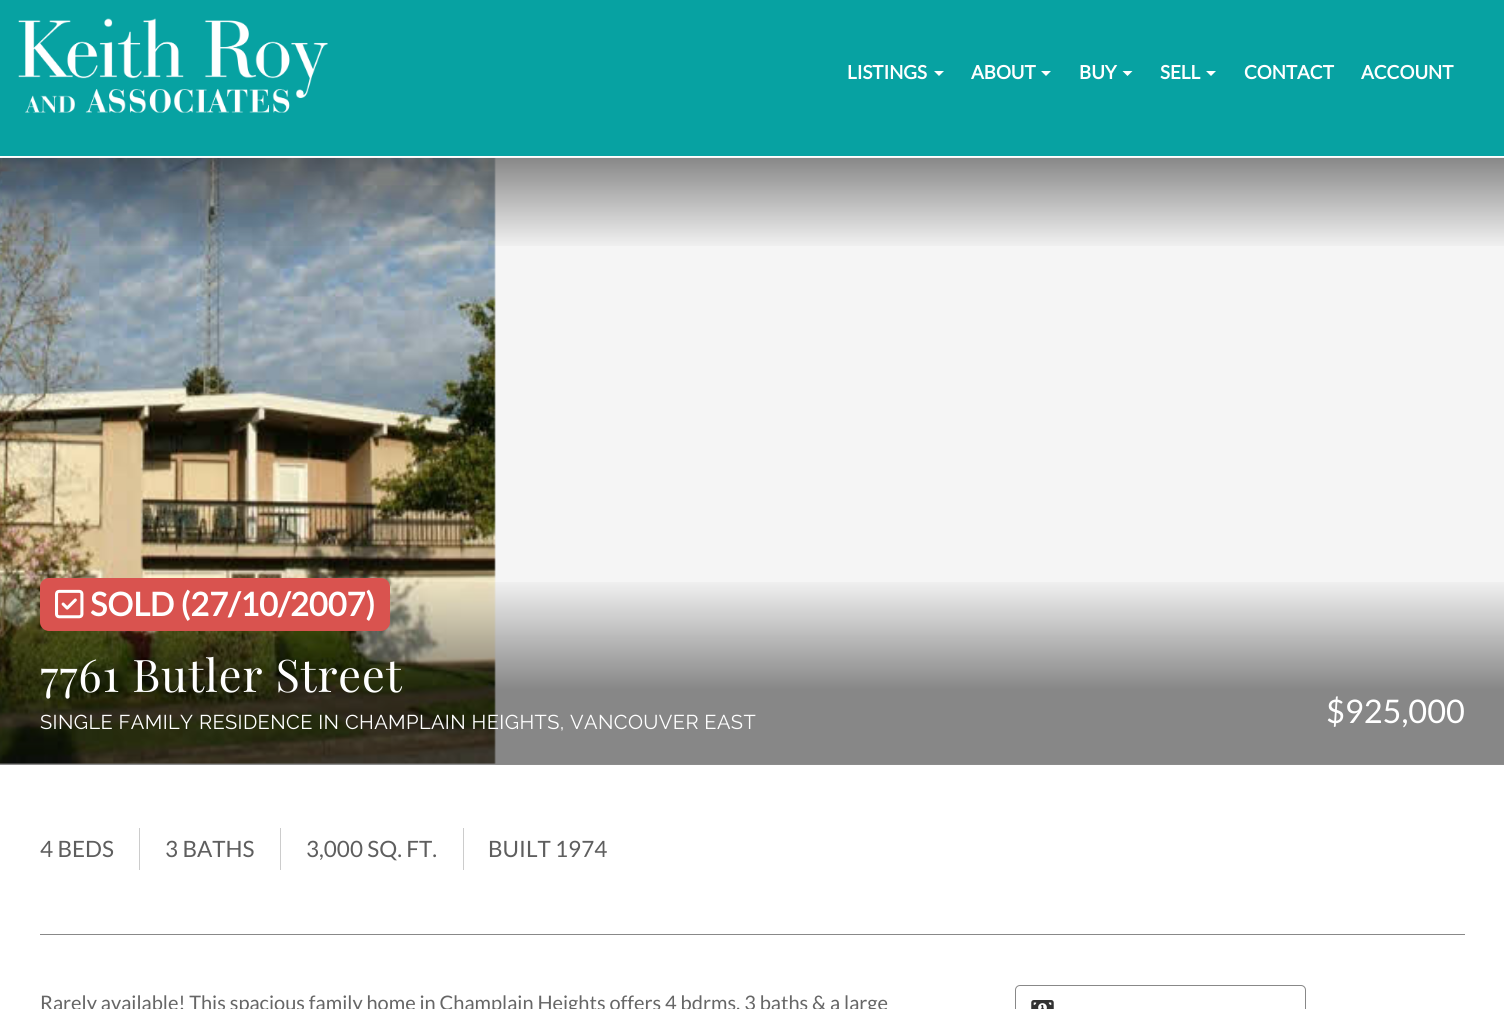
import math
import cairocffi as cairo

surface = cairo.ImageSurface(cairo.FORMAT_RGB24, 1504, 1009)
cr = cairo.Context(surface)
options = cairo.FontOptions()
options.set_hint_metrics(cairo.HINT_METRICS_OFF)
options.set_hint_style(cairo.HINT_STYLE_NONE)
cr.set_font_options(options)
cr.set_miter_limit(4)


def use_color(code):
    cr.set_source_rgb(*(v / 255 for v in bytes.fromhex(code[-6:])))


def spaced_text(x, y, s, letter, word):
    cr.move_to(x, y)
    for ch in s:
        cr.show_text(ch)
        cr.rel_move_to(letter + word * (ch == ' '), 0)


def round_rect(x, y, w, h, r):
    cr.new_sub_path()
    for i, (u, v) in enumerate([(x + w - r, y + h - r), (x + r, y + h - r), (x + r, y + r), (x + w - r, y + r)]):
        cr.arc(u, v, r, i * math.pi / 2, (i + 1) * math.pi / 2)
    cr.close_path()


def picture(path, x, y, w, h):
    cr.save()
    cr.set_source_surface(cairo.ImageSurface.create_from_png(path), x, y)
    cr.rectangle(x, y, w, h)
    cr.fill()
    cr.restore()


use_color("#ffffff")
cr.paint()
use_color("#07a2a2")
cr.rectangle(0, 0, 1504, 156)
cr.fill()
picture("img1.png", 18, 18, 310, 95)
cr.select_font_face("Lato", cairo.FONT_SLANT_NORMAL, cairo.FONT_WEIGHT_BOLD)
cr.set_font_size(18.75)
use_color("#ffffff")
cr.move_to(847, 79)
cr.show_text("LISTINGS")
cr.new_path()
cr.move_to(934, 71)
cr.line_to(944, 71)
cr.line_to(939, 76)
cr.close_path()
cr.fill()
cr.move_to(971, 79)
cr.show_text("ABOUT")
cr.new_path()
cr.move_to(1041, 71)
cr.line_to(1051, 71)
cr.line_to(1046, 76)
cr.close_path()
cr.fill()
cr.move_to(1079, 79)
cr.show_text("BUY")
cr.new_path()
cr.move_to(1122.5, 71)
cr.line_to(1132.5, 71)
cr.line_to(1127.5, 76)
cr.close_path()
cr.fill()
cr.move_to(1160, 79)
cr.show_text("SELL")
cr.new_path()
cr.move_to(1206, 71)
cr.line_to(1216, 71)
cr.line_to(1211, 76)
cr.close_path()
cr.fill()
cr.move_to(1244, 79)
cr.show_text("CONTACT")
cr.move_to(1361, 79)
cr.show_text("ACCOUNT")
use_color("#f5f5f5")
cr.rectangle(0, 157, 1504, 607)
cr.fill()
picture("img2.png", 0, 158, 496, 606)
gradient = cairo.LinearGradient(753, 157, 753, 250)
gradient.add_color_stop_rgba(0, 0, 0, 0, 0.45)
gradient.add_color_stop_rgba(1, 0, 0, 0, 0)
cr.set_source(gradient)
cr.rectangle(0, 158, 1504, 88)
cr.fill()
gradient = cairo.LinearGradient(753, 577, 753, 765)
gradient.add_color_stop_rgba(0, 0, 0, 0, 0)
gradient.add_color_stop_rgba(0.6, 0, 0, 0, 0.45)
cr.set_source(gradient)
cr.rectangle(0, 582, 1504, 183)
cr.fill()
use_color("#d9534f")
round_rect(40, 578, 350, 53, 9)
cr.fill()
picture("img3.png", 55, 589, 29, 30)
cr.set_font_size(32.5)
use_color("#ffffff")
cr.move_to(90, 616)
cr.show_text("SOLD (27/10/2007)")
cr.select_font_face("Playfair Display")
cr.set_font_size(45)
spaced_text(40, 692, "7761 Butler Street", 0.9, 0)
cr.select_font_face("Raleway")
cr.set_font_size(20)
spaced_text(40, 729, "SINGLE FAMILY RESIDENCE IN CHAMPLAIN HEIGHTS, VANCOUVER EAST", 0.4, 0)
cr.select_font_face("Lato")
cr.set_font_size(32.5)
cr.move_to(1326, 723)
cr.show_text("$925,000")
use_color("#888888")
cr.rectangle(40, 934, 1425, 1)
cr.fill()
use_color("#cccccc")
cr.rectangle(139, 828, 1, 42)
cr.fill()
cr.set_font_size(22.5)
use_color("#5e5e5e")
cr.move_to(40, 857)
cr.show_text("4 BEDS")
use_color("#cccccc")
cr.rectangle(280, 828, 1, 42)
cr.fill()
use_color("#5e5e5e")
cr.move_to(165, 857)
cr.show_text("3 BATHS")
use_color("#cccccc")
cr.rectangle(463, 828, 1, 42)
cr.fill()
use_color("#5e5e5e")
cr.move_to(306, 857)
cr.show_text("3,000 SQ. FT.")
cr.move_to(488, 857)
cr.show_text("BUILT 1974")
cr.set_font_size(20)
use_color("#666666")
cr.move_to(40, 1010)
cr.show_text("Rarely available! This spacious family home in Champlain Heights offers 4 bdrms, 3 baths & a large")
round_rect(1015.5, 985.5, 290, 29, 4.5)
use_color("#888888")
cr.set_line_width(1)
cr.stroke()
picture("img4.png", 1031, 1000, 23, 9)
surface.write_to_png("result.png")
